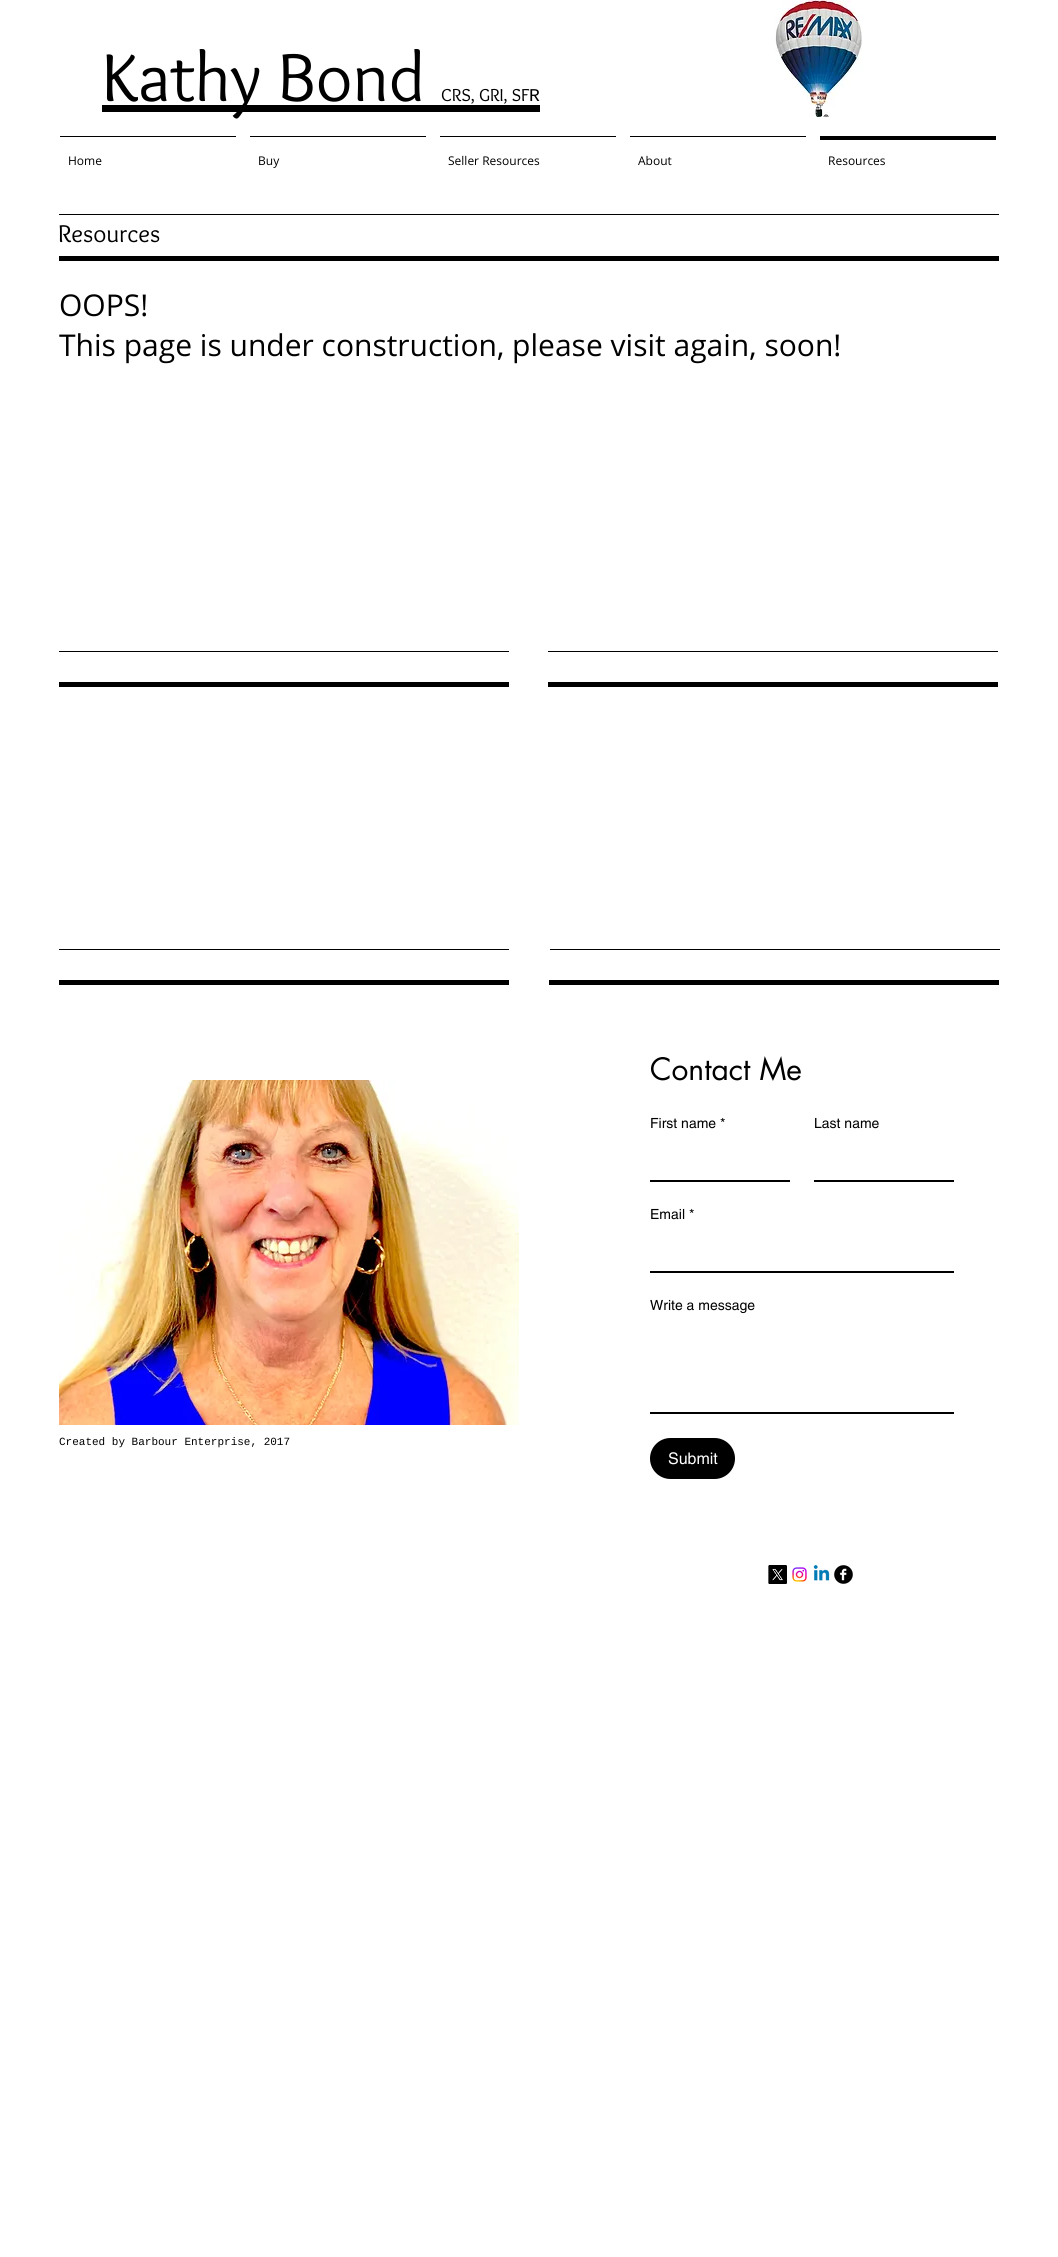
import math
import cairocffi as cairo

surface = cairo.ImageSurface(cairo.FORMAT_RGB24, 1058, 2257)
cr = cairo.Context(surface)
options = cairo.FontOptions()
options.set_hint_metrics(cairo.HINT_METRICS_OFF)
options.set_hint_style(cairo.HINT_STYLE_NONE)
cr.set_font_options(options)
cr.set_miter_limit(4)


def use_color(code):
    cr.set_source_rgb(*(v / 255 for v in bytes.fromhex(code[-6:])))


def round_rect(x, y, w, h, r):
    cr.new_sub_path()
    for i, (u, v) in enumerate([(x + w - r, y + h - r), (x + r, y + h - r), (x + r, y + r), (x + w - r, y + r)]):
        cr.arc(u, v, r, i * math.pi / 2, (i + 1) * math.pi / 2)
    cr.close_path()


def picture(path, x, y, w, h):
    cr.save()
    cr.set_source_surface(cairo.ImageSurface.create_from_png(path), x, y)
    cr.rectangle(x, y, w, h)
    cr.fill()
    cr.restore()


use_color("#ffffff")
cr.paint()
use_color("#000000")
cr.rectangle(102, 105, 438, 7)
cr.fill()
cr.select_font_face("Overlock")
cr.set_font_size(70)
cr.move_to(102, 101)
cr.show_text("Kathy Bond")
cr.set_font_size(18)
cr.move_to(441, 101)
cr.show_text("CRS, GRI, SF")
cr.select_font_face("Liberation Mono")
cr.move_to(529, 101)
cr.show_text("R")
picture("img1.png", 775, 0, 88, 117)
cr.rectangle(60, 136, 176, 1)
cr.fill()
cr.select_font_face("Open Sans")
cr.set_font_size(12)
cr.move_to(68, 165)
cr.show_text("Home")
cr.rectangle(250, 136, 176, 1)
cr.fill()
cr.move_to(258, 165)
cr.show_text("Buy")
cr.rectangle(440, 136, 176, 1)
cr.fill()
cr.move_to(448, 165)
cr.show_text("Seller Resources")
cr.rectangle(630, 136, 176, 1)
cr.fill()
cr.move_to(638, 165)
cr.show_text("About")
cr.rectangle(820, 136, 176, 4)
cr.fill()
cr.move_to(828, 165)
cr.show_text("Resources")
cr.rectangle(59, 214, 940, 1)
cr.fill()
cr.select_font_face("Overlock")
cr.set_font_size(25)
cr.move_to(58, 242)
cr.show_text("Resources")
cr.rectangle(59, 256, 940, 5)
cr.fill()
cr.select_font_face("Open Sans")
cr.set_font_size(30)
cr.move_to(59, 316)
cr.show_text("OOPS!")
cr.move_to(59, 356)
cr.show_text("This page is under construction, please visit again, soon!")
cr.rectangle(59, 651, 450, 1)
cr.fill()
cr.rectangle(548, 651, 450, 1)
cr.fill()
cr.rectangle(59, 682, 450, 5)
cr.fill()
cr.rectangle(548, 682, 450, 5)
cr.fill()
cr.rectangle(59, 949, 450, 1)
cr.fill()
cr.rectangle(550, 949, 450, 1)
cr.fill()
cr.rectangle(59, 980, 450, 5)
cr.fill()
cr.rectangle(549, 980, 450, 5)
cr.fill()
picture("img2.png", 59, 1080, 460, 345)
cr.select_font_face("futura")
cr.move_to(650, 1080)
cr.show_text("Contact Me")
cr.select_font_face("helvetica")
cr.set_font_size(14)
cr.move_to(650, 1128)
cr.show_text("First name *")
cr.move_to(814, 1128)
cr.show_text("Last name")
cr.rectangle(650, 1180, 140, 2)
cr.fill()
cr.rectangle(814, 1180, 140, 2)
cr.fill()
cr.move_to(650, 1219)
cr.show_text("Email *")
cr.rectangle(650, 1271, 304, 2)
cr.fill()
cr.move_to(650, 1310)
cr.show_text("Write a message")
cr.rectangle(650, 1412, 304, 2)
cr.fill()
round_rect(650, 1438, 85, 41, 20.5)
cr.fill()
cr.set_font_size(16)
use_color("#ffffff")
cr.move_to(668, 1464)
cr.show_text("Submit")
cr.select_font_face("Liberation Mono")
cr.set_font_size(11)
use_color("#000000")
cr.move_to(59, 1445)
cr.show_text("Created by Barbour Enterprise, 2017")
picture("img3.png", 768, 1565, 19, 19)
picture("img4.png", 792, 1567, 15, 15)
picture("img5.png", 813, 1565, 17, 16)
picture("img6.png", 834, 1565, 19, 19)
surface.write_to_png("result.png")
